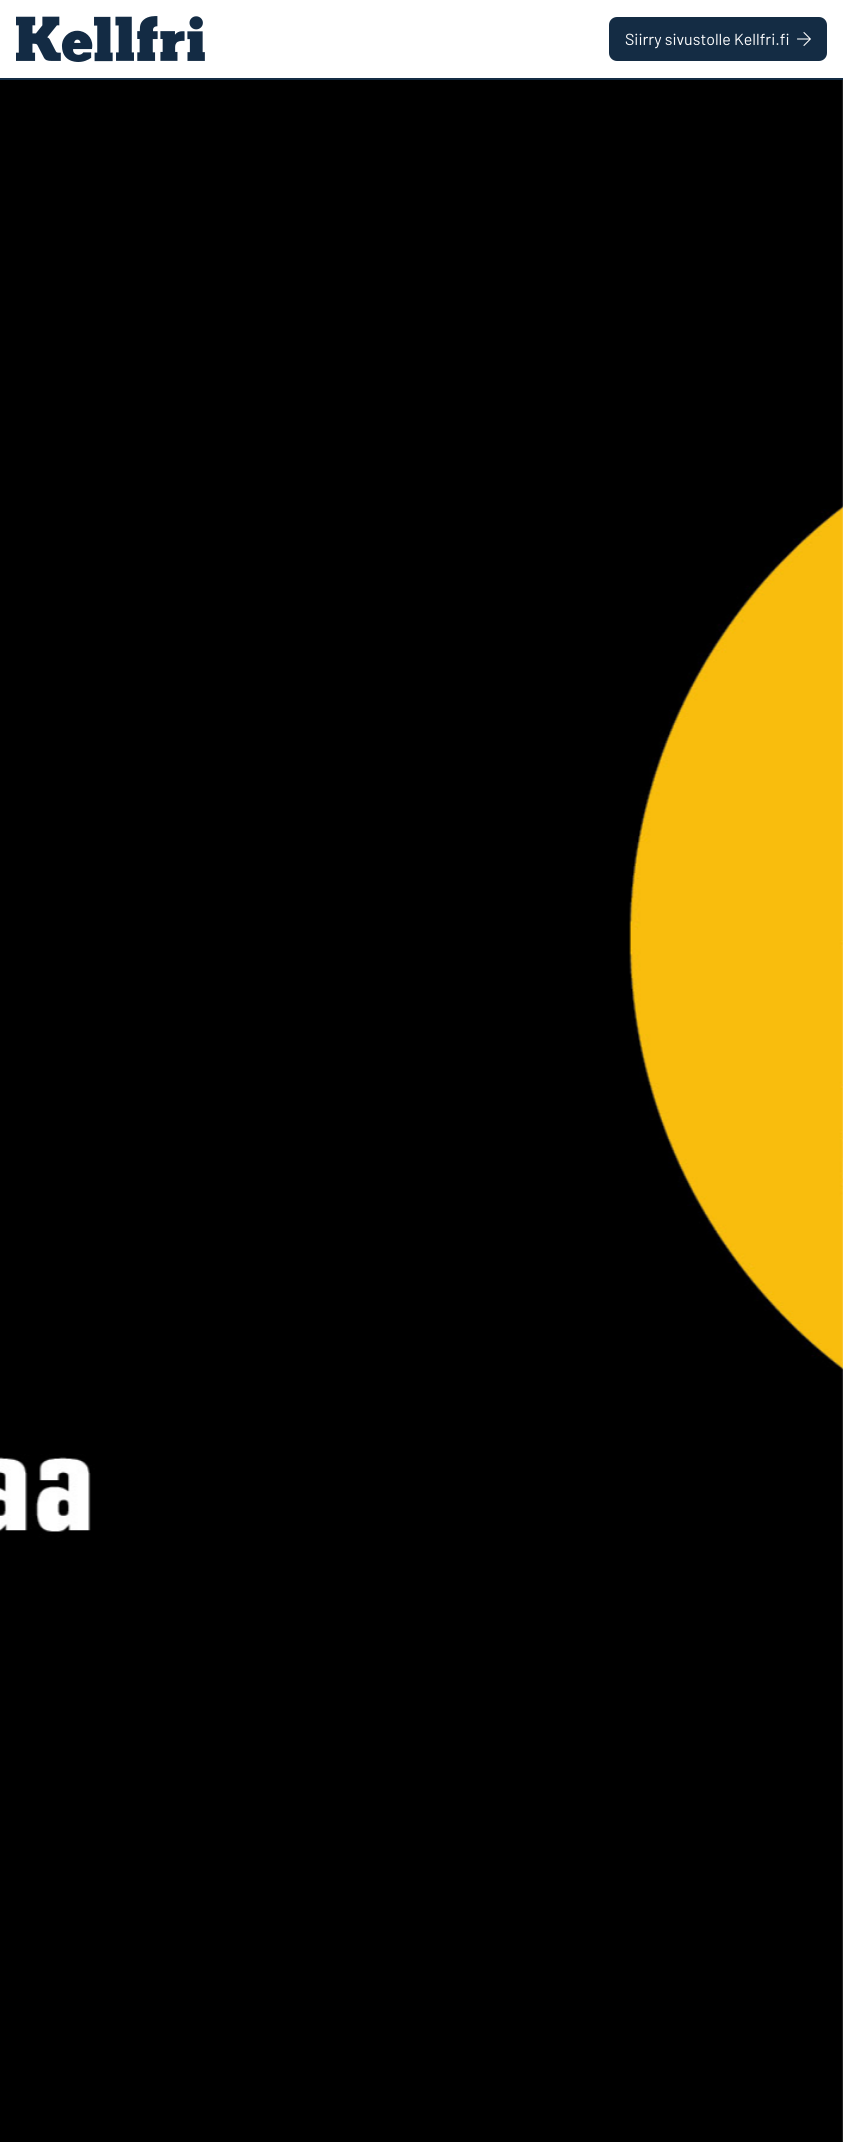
import math
import cairocffi as cairo

surface = cairo.ImageSurface(cairo.FORMAT_RGB24, 843, 2142)
cr = cairo.Context(surface)
options = cairo.FontOptions()
options.set_hint_metrics(cairo.HINT_METRICS_OFF)
options.set_hint_style(cairo.HINT_STYLE_NONE)
cr.set_font_options(options)
cr.set_miter_limit(4)


def use_color(code):
    cr.set_source_rgb(*(v / 255 for v in bytes.fromhex(code[-6:])))


def round_rect(x, y, w, h, r):
    cr.new_sub_path()
    for i, (u, v) in enumerate([(x + w - r, y + h - r), (x + r, y + h - r), (x + r, y + r), (x + w - r, y + r)]):
        cr.arc(u, v, r, i * math.pi / 2, (i + 1) * math.pi / 2)
    cr.close_path()


def picture(path, x, y, w, h):
    cr.save()
    cr.set_source_surface(cairo.ImageSurface.create_from_png(path), x, y)
    cr.rectangle(x, y, w, h)
    cr.fill()
    cr.restore()


use_color("#ffffff")
cr.paint()
use_color("#142c44")
cr.rectangle(0, 78, 843, 2)
cr.fill()
picture("img1.png", 16, 16, 189, 46)
round_rect(609, 17, 218, 44, 8)
cr.fill()
cr.select_font_face("Barlow")
cr.set_font_size(16)
use_color("#ffffff")
cr.move_to(625, 45)
cr.show_text("Siirry sivustolle Kellfri.fi")
picture("img2.png", 797, 32, 14, 14)
picture("img3.png", 0, 80, 843, 2062)
surface.write_to_png("result.png")
